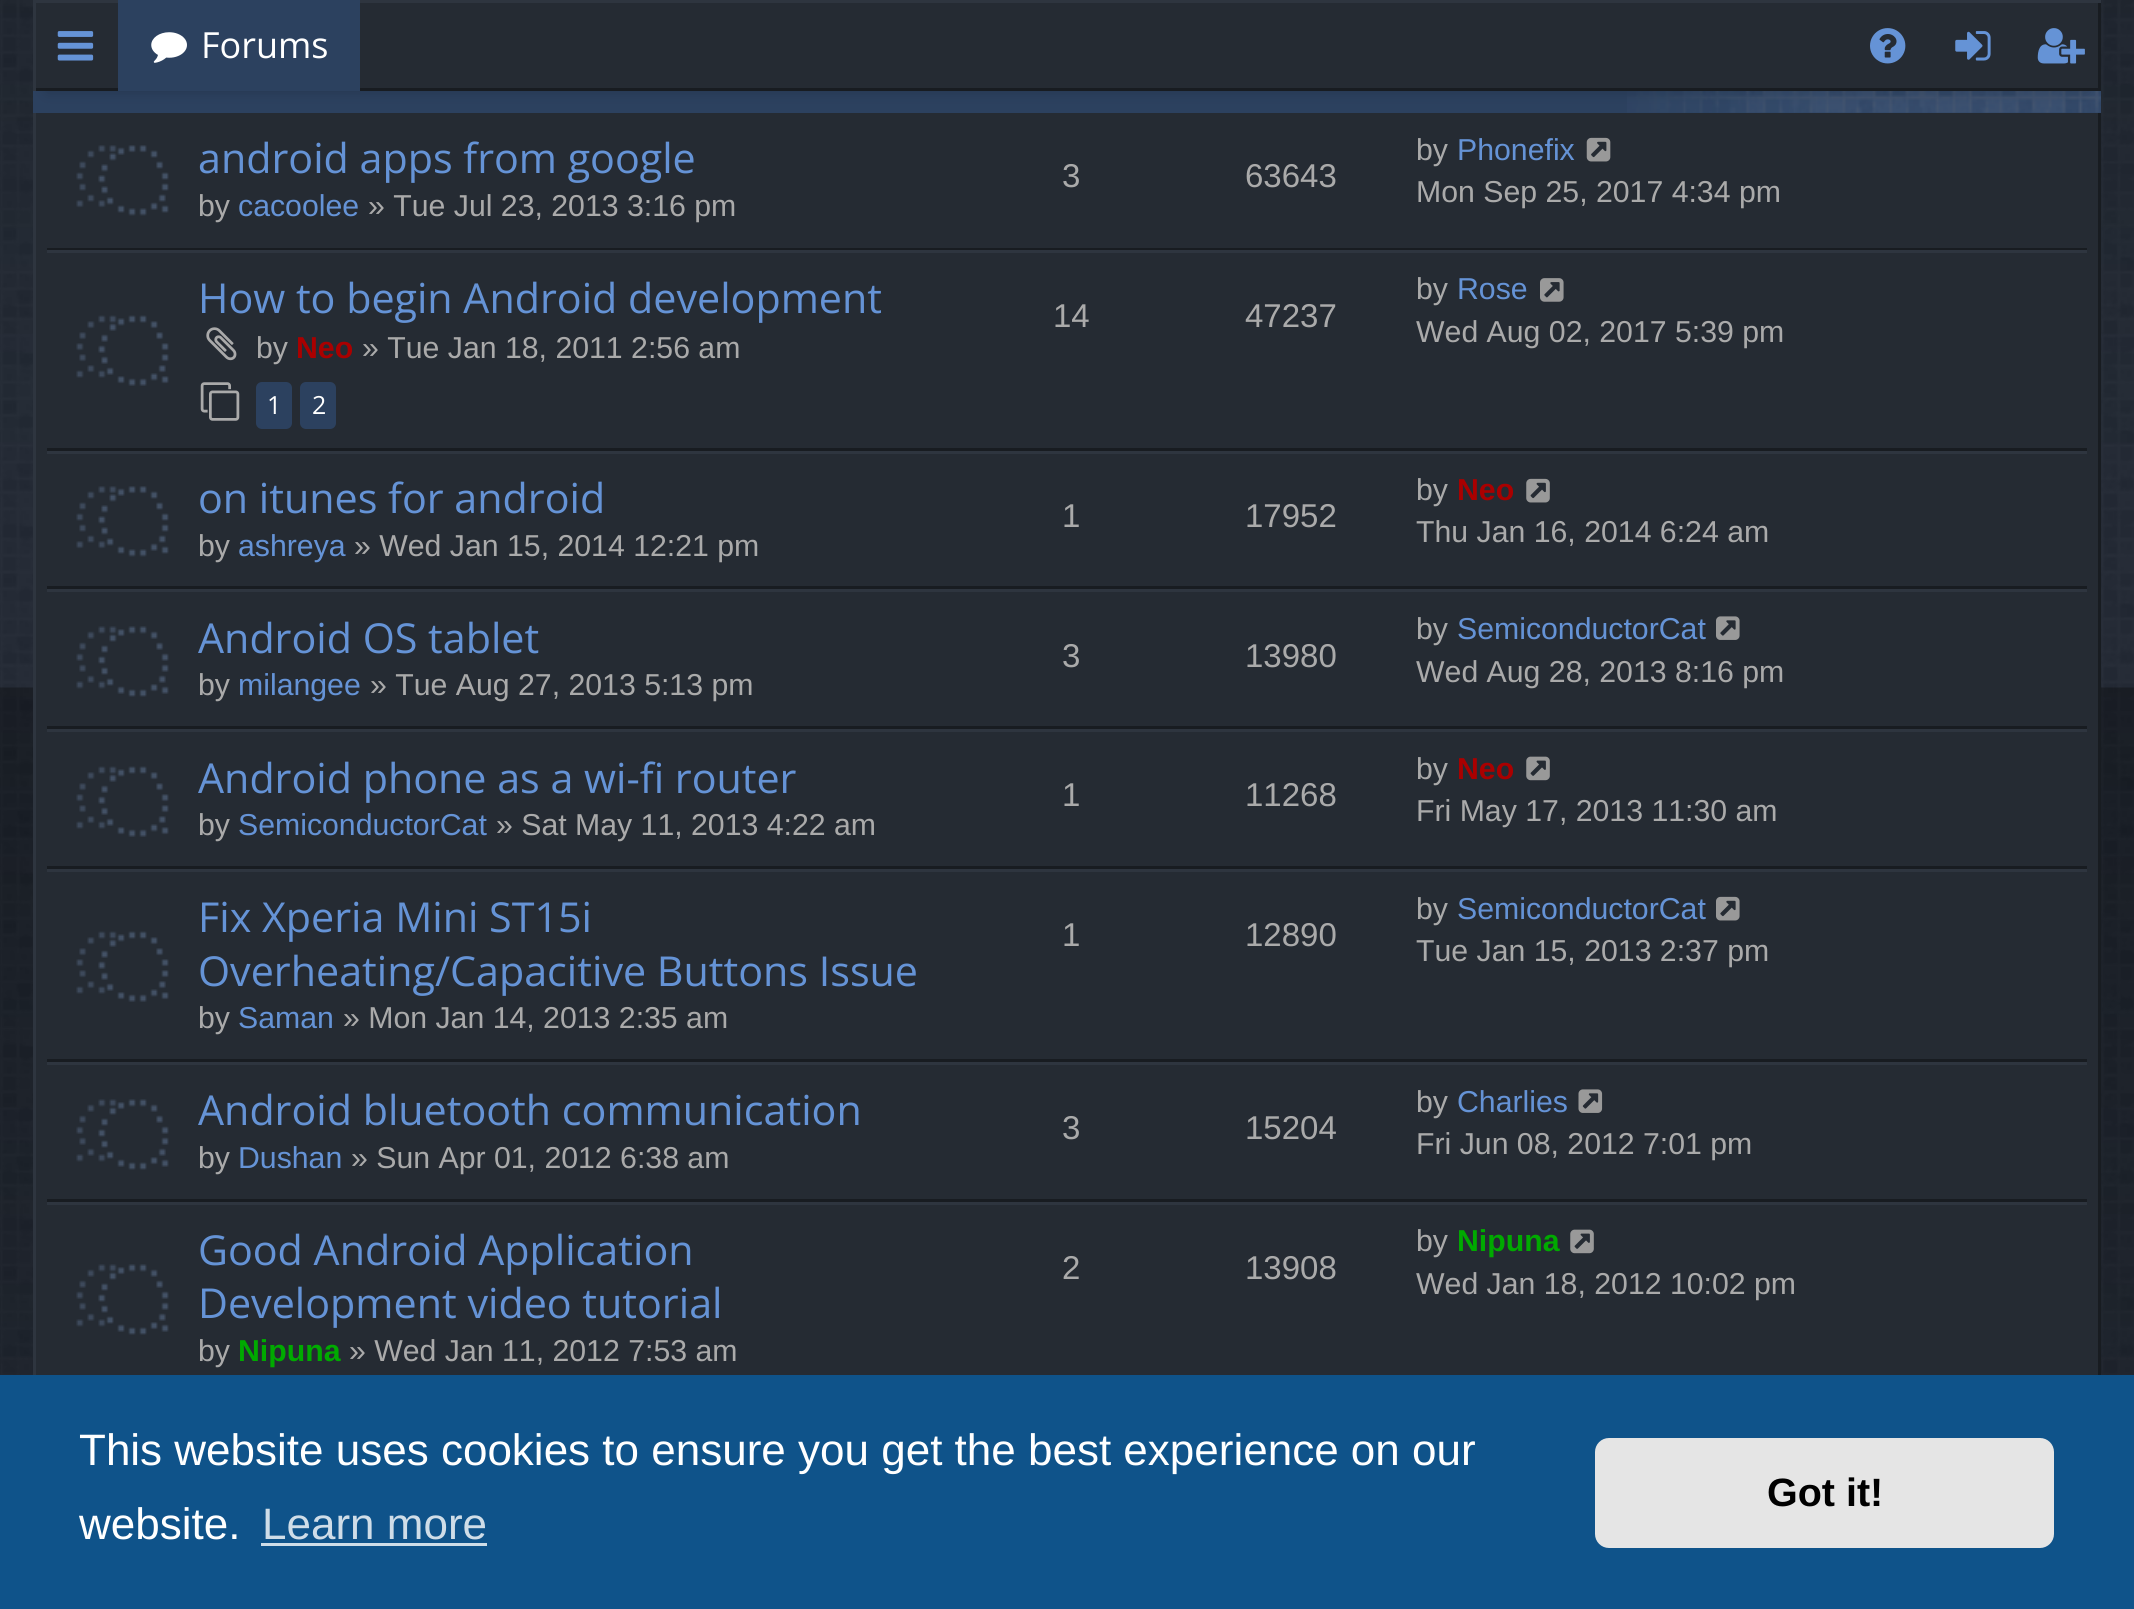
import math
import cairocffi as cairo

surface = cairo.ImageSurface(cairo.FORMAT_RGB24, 2134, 1609)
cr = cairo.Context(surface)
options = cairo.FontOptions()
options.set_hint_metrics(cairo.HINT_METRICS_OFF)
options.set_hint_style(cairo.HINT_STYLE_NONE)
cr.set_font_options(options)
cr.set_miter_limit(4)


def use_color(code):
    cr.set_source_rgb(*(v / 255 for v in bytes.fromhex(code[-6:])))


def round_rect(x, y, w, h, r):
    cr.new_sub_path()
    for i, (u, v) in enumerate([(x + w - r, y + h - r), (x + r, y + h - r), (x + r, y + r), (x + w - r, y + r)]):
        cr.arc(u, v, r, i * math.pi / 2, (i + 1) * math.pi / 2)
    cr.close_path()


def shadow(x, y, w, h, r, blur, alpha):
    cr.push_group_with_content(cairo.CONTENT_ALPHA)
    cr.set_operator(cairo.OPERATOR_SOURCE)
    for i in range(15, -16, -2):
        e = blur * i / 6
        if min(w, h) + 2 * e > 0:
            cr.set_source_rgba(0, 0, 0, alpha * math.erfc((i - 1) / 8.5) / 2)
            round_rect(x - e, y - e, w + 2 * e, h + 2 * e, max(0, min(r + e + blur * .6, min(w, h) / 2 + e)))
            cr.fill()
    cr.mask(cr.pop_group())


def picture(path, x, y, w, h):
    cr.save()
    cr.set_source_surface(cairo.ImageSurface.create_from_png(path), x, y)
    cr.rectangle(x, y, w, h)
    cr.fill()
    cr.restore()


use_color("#1c232e")
cr.paint()
picture("img1.png", 0, 0, 2134, 1375)
use_color("#2c415f")
cr.rectangle(33, 91, 2068, 22)
cr.fill()
picture("img7.png", 1627, 91, 474, 22)
use_color("#000000")
shadow(47, 28, 2040, 63, 0, 7, 0.2)
use_color("#252b33")
cr.rectangle(36, 3, 2062, 85)
cr.fill()
cr.save()
cr.rectangle(33, 0, 2068, 91)
cr.clip()
use_color("#181c21")
cr.set_fill_rule(cairo.FILL_RULE_EVEN_ODD)
cr.new_path()
cr.move_to(-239, -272)
cr.line_to(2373, -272)
cr.line_to(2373, 363)
cr.line_to(-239, 363)
cr.close_path()
cr.move_to(30, -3)
cr.line_to(2098, -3)
cr.line_to(2098, 88)
cr.line_to(30, 88)
cr.close_path()
cr.fill()
use_color("#2e353f")
cr.new_path()
cr.move_to(-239, -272)
cr.line_to(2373, -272)
cr.line_to(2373, 363)
cr.line_to(-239, 363)
cr.close_path()
cr.move_to(36, 3)
cr.line_to(2104, 3)
cr.line_to(2104, 94)
cr.line_to(36, 94)
cr.close_path()
cr.fill()
cr.restore()
picture("img2.png", 57, 31, 37, 30)
use_color("#2c415f")
cr.rectangle(118, 0, 242, 91)
cr.fill()
picture("img3.png", 151, 32, 36, 31)
cr.select_font_face("Open Sans")
cr.set_font_size(36)
use_color("#ffffff")
cr.move_to(201, 58)
cr.show_text("Forums")
picture("img4.png", 1870, 28, 36, 36)
picture("img5.png", 1955, 31, 36, 30)
picture("img6.png", 2037, 28, 48, 36)
use_color("#252b33")
cr.rectangle(36, 113, 2062, 1262)
cr.fill()
use_color("#181c21")
cr.rectangle(2098, 113, 3, 1262)
cr.fill()
use_color("#2e353f")
cr.rectangle(33, 113, 3, 1262)
cr.fill()
use_color("#181c21")
cr.rectangle(47, 248, 2040, 2)
cr.fill()
picture("img8.png", 76, 145, 93, 71)
cr.set_font_size(41.25)
use_color("#6593d6")
cr.move_to(198, 173)
cr.show_text("android apps from google")
cr.select_font_face("Liberation Sans")
cr.set_font_size(30.25)
use_color("#aaaaaa")
cr.move_to(198, 216)
cr.show_text("by")
use_color("#6593d6")
cr.move_to(238, 216)
cr.show_text("cacoolee")
use_color("#aaaaaa")
cr.move_to(368, 216)
cr.show_text("» Tue Jul 23, 2013 3:16 pm")
cr.set_font_size(33)
cr.move_to(1062, 187)
cr.show_text("3")
cr.move_to(1245, 187)
cr.show_text("63643")
cr.set_font_size(30.25)
cr.move_to(1416, 160)
cr.show_text("by")
use_color("#6593d6")
cr.move_to(1457, 160)
cr.show_text("Phonefix")
picture("img9.png", 1586, 137, 25, 25)
use_color("#aaaaaa")
cr.move_to(1416, 202)
cr.show_text("Mon Sep 25, 2017 4:34 pm")
use_color("#2e353f")
cr.rectangle(47, 250, 2040, 3)
cr.fill()
use_color("#181c21")
cr.rectangle(47, 448, 2040, 3)
cr.fill()
picture("img10.png", 76, 315, 93, 71)
cr.select_font_face("Open Sans")
cr.set_font_size(41.25)
use_color("#6593d6")
cr.move_to(198, 313)
cr.show_text("How to begin Android development")
picture("img11.png", 206, 327, 31, 34)
cr.select_font_face("Liberation Sans")
cr.set_font_size(30.25)
use_color("#aaaaaa")
cr.move_to(256, 358)
cr.show_text("by")
cr.select_font_face("Liberation Sans", cairo.FONT_SLANT_NORMAL, cairo.FONT_WEIGHT_BOLD)
use_color("#aa0000")
cr.move_to(296, 358)
cr.show_text("Neo")
cr.select_font_face("Liberation Sans")
use_color("#aaaaaa")
cr.move_to(362, 358)
cr.show_text("» Tue Jan 18, 2011 2:56 am")
picture("img12.png", 200, 382, 40, 39)
use_color("#2c415f")
round_rect(257.5, 383.5, 33, 44, 4.5)
cr.fill_preserve()
cr.set_line_width(3)
cr.stroke()
cr.select_font_face("Open Sans")
cr.set_font_size(25)
use_color("#ffffff")
cr.move_to(267, 414)
cr.show_text("1")
use_color("#2c415f")
round_rect(301.5, 383.5, 33, 44, 4.5)
cr.fill_preserve()
cr.stroke()
use_color("#ffffff")
cr.move_to(312, 414)
cr.show_text("2")
cr.select_font_face("Liberation Sans")
cr.set_font_size(33)
use_color("#aaaaaa")
cr.move_to(1053, 327)
cr.show_text("14")
cr.move_to(1245, 327)
cr.show_text("47237")
cr.set_font_size(30.25)
cr.move_to(1416, 299)
cr.show_text("by")
use_color("#6593d6")
cr.move_to(1457, 299)
cr.show_text("Rose")
picture("img13.png", 1540, 278, 24, 24)
use_color("#aaaaaa")
cr.move_to(1416, 342)
cr.show_text("Wed Aug 02, 2017 5:39 pm")
use_color("#2e353f")
cr.rectangle(47, 451, 2040, 3)
cr.fill()
use_color("#181c21")
cr.rectangle(47, 586, 2040, 3)
cr.fill()
picture("img8.png", 76, 486, 93, 71)
cr.select_font_face("Open Sans")
cr.set_font_size(41.25)
use_color("#6593d6")
cr.move_to(198, 513)
cr.show_text("on itunes for android")
cr.select_font_face("Liberation Sans")
cr.set_font_size(30.25)
use_color("#aaaaaa")
cr.move_to(198, 556)
cr.show_text("by")
use_color("#6593d6")
cr.move_to(238, 556)
cr.show_text("ashreya")
use_color("#aaaaaa")
cr.move_to(354, 556)
cr.show_text("» Wed Jan 15, 2014 12:21 pm")
cr.set_font_size(33)
cr.move_to(1062, 527)
cr.show_text("1")
cr.move_to(1245, 527)
cr.show_text("17952")
cr.set_font_size(30.25)
cr.move_to(1416, 500)
cr.show_text("by")
cr.select_font_face("Liberation Sans", cairo.FONT_SLANT_NORMAL, cairo.FONT_WEIGHT_BOLD)
use_color("#aa0000")
cr.move_to(1457, 500)
cr.show_text("Neo")
picture("img14.png", 1526, 478, 24, 25)
cr.select_font_face("Liberation Sans")
use_color("#aaaaaa")
cr.move_to(1416, 542)
cr.show_text("Thu Jan 16, 2014 6:24 am")
use_color("#2e353f")
cr.rectangle(47, 589, 2040, 3)
cr.fill()
use_color("#181c21")
cr.rectangle(47, 726, 2040, 3)
cr.fill()
picture("img15.png", 76, 626, 93, 71)
cr.select_font_face("Open Sans")
cr.set_font_size(41.25)
use_color("#6593d6")
cr.move_to(198, 653)
cr.show_text("Android OS tablet")
cr.select_font_face("Liberation Sans")
cr.set_font_size(30.25)
use_color("#aaaaaa")
cr.move_to(198, 695)
cr.show_text("by")
use_color("#6593d6")
cr.move_to(238, 695)
cr.show_text("milangee")
use_color("#aaaaaa")
cr.move_to(370, 695)
cr.show_text("» Tue Aug 27, 2013 5:13 pm")
cr.set_font_size(33)
cr.move_to(1062, 667)
cr.show_text("3")
cr.move_to(1245, 667)
cr.show_text("13980")
cr.set_font_size(30.25)
cr.move_to(1416, 639)
cr.show_text("by")
use_color("#6593d6")
cr.move_to(1457, 639)
cr.show_text("SemiconductorCat")
picture("img16.png", 1716, 616, 24, 24)
use_color("#aaaaaa")
cr.move_to(1416, 682)
cr.show_text("Wed Aug 28, 2013 8:16 pm")
use_color("#2e353f")
cr.rectangle(47, 729, 2040, 3)
cr.fill()
use_color("#181c21")
cr.rectangle(47, 866, 2040, 3)
cr.fill()
picture("img10.png", 76, 766, 93, 71)
cr.select_font_face("Open Sans")
cr.set_font_size(41.25)
use_color("#6593d6")
cr.move_to(198, 793)
cr.show_text("Android phone as a wi-fi router")
cr.select_font_face("Liberation Sans")
cr.set_font_size(30.25)
use_color("#aaaaaa")
cr.move_to(198, 835)
cr.show_text("by")
use_color("#6593d6")
cr.move_to(238, 835)
cr.show_text("SemiconductorCat")
use_color("#aaaaaa")
cr.move_to(496, 835)
cr.show_text("» Sat May 11, 2013 4:22 am")
cr.set_font_size(33)
cr.move_to(1062, 806)
cr.show_text("1")
cr.move_to(1245, 806)
cr.show_text("11268")
cr.set_font_size(30.25)
cr.move_to(1416, 779)
cr.show_text("by")
cr.select_font_face("Liberation Sans", cairo.FONT_SLANT_NORMAL, cairo.FONT_WEIGHT_BOLD)
use_color("#aa0000")
cr.move_to(1457, 779)
cr.show_text("Neo")
picture("img17.png", 1526, 756, 24, 25)
cr.select_font_face("Liberation Sans")
use_color("#aaaaaa")
cr.move_to(1416, 821)
cr.show_text("Fri May 17, 2013 11:30 am")
use_color("#2e353f")
cr.rectangle(47, 869, 2040, 3)
cr.fill()
use_color("#181c21")
cr.rectangle(47, 1059, 2040, 3)
cr.fill()
picture("img10.png", 76, 931, 93, 71)
cr.select_font_face("Open Sans")
cr.set_font_size(41.25)
use_color("#6593d6")
cr.move_to(198, 932)
cr.show_text("Fix Xperia Mini ST15i")
cr.move_to(198, 986)
cr.show_text("Overheating/Capacitive Buttons Issue")
cr.select_font_face("Liberation Sans")
cr.set_font_size(30.25)
use_color("#aaaaaa")
cr.move_to(198, 1028)
cr.show_text("by")
use_color("#6593d6")
cr.move_to(238, 1028)
cr.show_text("Saman")
use_color("#aaaaaa")
cr.move_to(343, 1028)
cr.show_text("» Mon Jan 14, 2013 2:35 am")
cr.set_font_size(33)
cr.move_to(1062, 946)
cr.show_text("1")
cr.move_to(1245, 946)
cr.show_text("12890")
cr.set_font_size(30.25)
cr.move_to(1416, 919)
cr.show_text("by")
use_color("#6593d6")
cr.move_to(1457, 919)
cr.show_text("SemiconductorCat")
picture("img18.png", 1716, 896, 24, 25)
use_color("#aaaaaa")
cr.move_to(1416, 961)
cr.show_text("Tue Jan 15, 2013 2:37 pm")
use_color("#2e353f")
cr.rectangle(47, 1062, 2040, 3)
cr.fill()
use_color("#181c21")
cr.rectangle(47, 1199, 2040, 3)
cr.fill()
picture("img15.png", 76, 1099, 93, 71)
cr.select_font_face("Open Sans")
cr.set_font_size(41.25)
use_color("#6593d6")
cr.move_to(198, 1125)
cr.show_text("Android bluetooth communication")
cr.select_font_face("Liberation Sans")
cr.set_font_size(30.25)
use_color("#aaaaaa")
cr.move_to(198, 1168)
cr.show_text("by")
use_color("#6593d6")
cr.move_to(238, 1168)
cr.show_text("Dushan")
use_color("#aaaaaa")
cr.move_to(351, 1168)
cr.show_text("» Sun Apr 01, 2012 6:38 am")
cr.set_font_size(33)
cr.move_to(1062, 1139)
cr.show_text("3")
cr.move_to(1245, 1139)
cr.show_text("15204")
cr.set_font_size(30.25)
cr.move_to(1416, 1112)
cr.show_text("by")
use_color("#6593d6")
cr.move_to(1457, 1112)
cr.show_text("Charlies")
picture("img19.png", 1578, 1089, 25, 24)
use_color("#aaaaaa")
cr.move_to(1416, 1154)
cr.show_text("Fri Jun 08, 2012 7:01 pm")
use_color("#2e353f")
cr.rectangle(47, 1202, 2040, 3)
cr.fill()
picture("img15.png", 76, 1264, 93, 71)
cr.select_font_face("Open Sans")
cr.set_font_size(41.25)
use_color("#6593d6")
cr.move_to(198, 1265)
cr.show_text("Good Android Application")
cr.move_to(198, 1318)
cr.show_text("Development video tutorial")
cr.select_font_face("Liberation Sans")
cr.set_font_size(30.25)
use_color("#aaaaaa")
cr.move_to(198, 1361)
cr.show_text("by")
cr.select_font_face("Liberation Sans", cairo.FONT_SLANT_NORMAL, cairo.FONT_WEIGHT_BOLD)
use_color("#00aa00")
cr.move_to(238, 1361)
cr.show_text("Nipuna")
cr.select_font_face("Liberation Sans")
use_color("#aaaaaa")
cr.move_to(349, 1361)
cr.show_text("» Wed Jan 11, 2012 7:53 am")
cr.set_font_size(33)
cr.move_to(1062, 1279)
cr.show_text("2")
cr.move_to(1245, 1279)
cr.show_text("13908")
cr.set_font_size(30.25)
cr.move_to(1416, 1251)
cr.show_text("by")
cr.select_font_face("Liberation Sans", cairo.FONT_SLANT_NORMAL, cairo.FONT_WEIGHT_BOLD)
use_color("#00aa00")
cr.move_to(1457, 1251)
cr.show_text("Nipuna")
picture("img17.png", 1570, 1229, 24, 25)
cr.select_font_face("Liberation Sans")
use_color("#aaaaaa")
cr.move_to(1416, 1294)
cr.show_text("Wed Jan 18, 2012 10:02 pm")
use_color("#0f538a")
cr.rectangle(0, 1375, 2134, 234)
cr.fill()
cr.set_font_size(44)
use_color("#ffffff")
cr.move_to(79, 1465)
cr.show_text("This website uses cookies to ensure you get the best experience on our")
cr.move_to(79, 1539)
cr.show_text("website.")
use_color("#cfdde8")
cr.move_to(262, 1539)
cr.show_text("Learn more")
cr.rectangle(261, 1543, 226, 3)
cr.fill()
use_color("#e5e5e5")
round_rect(1595, 1438, 459, 110, 14)
cr.fill()
cr.select_font_face("Liberation Sans", cairo.FONT_SLANT_NORMAL, cairo.FONT_WEIGHT_BOLD)
cr.set_font_size(39.5)
use_color("#000000")
cr.move_to(1767, 1506)
cr.show_text("Got it!")
surface.write_to_png("result.png")
